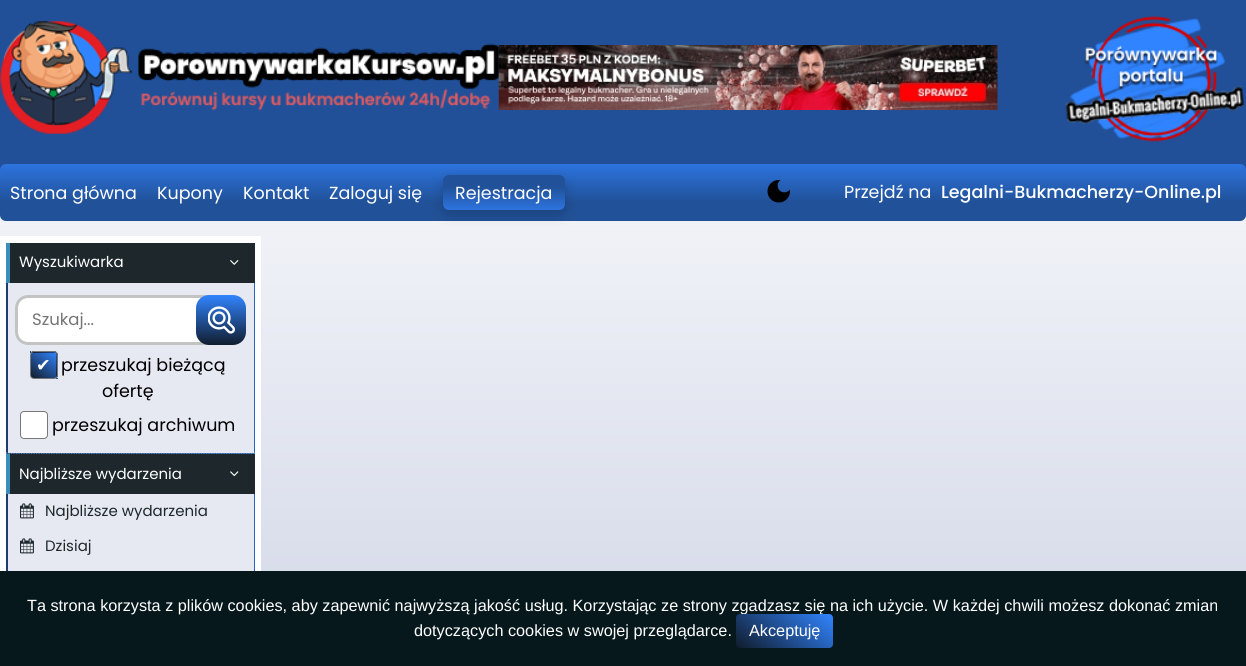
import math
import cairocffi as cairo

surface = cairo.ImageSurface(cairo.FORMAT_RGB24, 1246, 666)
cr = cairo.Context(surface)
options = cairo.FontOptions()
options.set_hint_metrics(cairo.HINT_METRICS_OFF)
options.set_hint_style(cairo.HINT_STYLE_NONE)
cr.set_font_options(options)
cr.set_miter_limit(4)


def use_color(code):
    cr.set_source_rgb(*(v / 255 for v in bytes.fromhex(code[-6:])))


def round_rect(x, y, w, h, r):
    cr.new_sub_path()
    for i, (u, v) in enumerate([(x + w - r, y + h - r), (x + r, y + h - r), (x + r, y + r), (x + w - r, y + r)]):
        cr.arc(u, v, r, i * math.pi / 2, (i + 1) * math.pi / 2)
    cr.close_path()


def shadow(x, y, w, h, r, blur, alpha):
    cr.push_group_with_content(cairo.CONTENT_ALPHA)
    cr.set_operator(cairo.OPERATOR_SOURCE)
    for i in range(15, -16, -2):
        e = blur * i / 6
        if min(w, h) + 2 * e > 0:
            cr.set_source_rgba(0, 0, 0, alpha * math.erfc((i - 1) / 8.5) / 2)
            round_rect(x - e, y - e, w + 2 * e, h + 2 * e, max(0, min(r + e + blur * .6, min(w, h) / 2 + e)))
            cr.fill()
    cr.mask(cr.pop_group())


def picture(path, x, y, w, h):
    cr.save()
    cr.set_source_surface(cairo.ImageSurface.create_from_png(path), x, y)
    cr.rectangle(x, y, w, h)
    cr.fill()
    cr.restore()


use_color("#ffffff")
cr.paint()
gradient = cairo.LinearGradient(623, 0, 623, 666)
gradient.add_color_stop_rgba(0, 1, 1, 1, 1)
gradient.add_color_stop_rgba(1, 0.827, 0.847, 0.91, 1)
cr.set_source(gradient)
cr.rectangle(0, 215, 1246, 356)
cr.fill()
use_color("#215098")
cr.rectangle(0, 0, 1246, 170)
cr.fill()
picture("img1.png", 0, 21, 499, 113)
picture("img2.png", 498, 45, 500, 65)
picture("img3.png", 1065, 16, 179, 132)
gradient = cairo.LinearGradient(623, 221, 623, 164)
gradient.add_color_stop_rgba(0.33, 0.129, 0.318, 0.596, 1)
gradient.add_color_stop_rgba(1, 0.173, 0.455, 0.875, 1)
cr.set_source(gradient)
round_rect(0, 164, 1246, 57, 6)
cr.fill()
cr.select_font_face("Poppins")
cr.set_font_size(17.5)
use_color("#ffffff")
cr.move_to(10, 199)
cr.show_text("Strona główna")
cr.move_to(157, 199)
cr.show_text("Kupony")
cr.move_to(243, 199)
cr.show_text("Kontakt")
cr.move_to(329, 199)
cr.show_text("Zaloguj się")
use_color("#000000")
shadow(443, 179, 122, 35, 6, 6, 0.2)
gradient = cairo.LinearGradient(504, 175, 504, 210)
gradient.add_color_stop_rgba(0.33, 0.129, 0.318, 0.596, 1)
gradient.add_color_stop_rgba(1, 0.173, 0.455, 0.875, 1)
cr.set_source(gradient)
round_rect(443, 175, 122, 35, 6)
cr.fill()
use_color("#ffffff")
cr.move_to(455, 199)
cr.show_text("Rejestracja")
picture("img4.png", 767, 180, 23, 23)
cr.move_to(844, 198)
cr.show_text("Przejdź na")
cr.select_font_face("Poppins Medium")
cr.move_to(941, 198)
cr.show_text("Legalni-Bukmacherzy-Online.pl")
cr.rectangle(0, 236, 261, 335)
cr.fill()
gradient = cairo.LinearGradient(255, 348, 6.2, 348)
gradient.add_color_stop_rgba(0, 0.153, 0.392, 0.745, 1)
gradient.add_color_stop_rgba(1, 0.106, 0.239, 0.435, 1)
cr.set_source(gradient)
cr.rectangle(6, 283, 249, 171)
cr.fill()
cr.new_path()
cr.move_to(6, 453)
cr.line_to(255, 453)
use_color("#8aa4af")
cr.set_line_width(1.2)
cr.set_dash([1.25, 1.25])
cr.stroke()
use_color("#1e282c")
cr.rectangle(10, 243, 245, 40)
cr.fill()
use_color("#3c8dbc")
cr.rectangle(6, 243, 4, 40)
cr.fill()
cr.select_font_face("Poppins")
cr.set_font_size(15)
use_color("#ffffff")
cr.move_to(19, 267)
cr.show_text("Wyszukiwarka")
picture("img5.png", 230, 260, 9, 5)
use_color("#e6e9f2")
cr.rectangle(8, 283, 246, 170)
cr.fill()
use_color("#ffffff")
round_rect(16.5, 296.5, 225, 47, 11.5)
cr.fill_preserve()
use_color("#c3c3c4")
cr.set_line_width(3)
cr.set_dash([])
cr.stroke()
cr.set_font_size(16.5)
use_color("#757575")
cr.move_to(32, 325)
cr.show_text("Szukaj...")
gradient = cairo.LinearGradient(221, 295, 221, 345)
gradient.add_color_stop_rgba(0, 0.192, 0.518, 1, 1)
gradient.add_color_stop_rgba(1, 0.067, 0.114, 0.18, 1)
cr.set_source(gradient)
round_rect(196, 295, 50, 50, 13)
cr.fill()
picture("img6.png", 208, 306, 27, 28)
gradient = cairo.LinearGradient(30, 326, 7.9, 354)
gradient.add_color_stop_rgba(0, 0.192, 0.518, 1, 1)
gradient.add_color_stop_rgba(1, 0.067, 0.114, 0.18, 1)
cr.set_source(gradient)
cr.rectangle(30, 351, 1, 2)
cr.fill()
cr.save()
round_rect(30, 351, 28, 28, 4)
cr.clip()
gradient = cairo.LinearGradient(55, 326, 33, 354)
gradient.add_color_stop_rgba(0, 0.192, 0.518, 1, 1)
gradient.add_color_stop_rgba(1, 0.067, 0.114, 0.18, 1)
cr.set_source(gradient)
cr.rectangle(31, 351, 25, 2)
cr.fill()
cr.restore()
gradient = cairo.LinearGradient(55, 351, 33, 379)
gradient.add_color_stop_rgba(0, 0.192, 0.518, 1, 1)
gradient.add_color_stop_rgba(1, 0.067, 0.114, 0.18, 1)
cr.set_source(gradient)
cr.rectangle(31, 353, 25, 25)
cr.fill()
cr.save()
round_rect(30, 351, 28, 28, 4)
cr.clip()
gradient = cairo.LinearGradient(80, 351, 58, 379)
gradient.add_color_stop_rgba(0, 0.192, 0.518, 1, 1)
gradient.add_color_stop_rgba(1, 0.067, 0.114, 0.18, 1)
cr.set_source(gradient)
cr.rectangle(56, 353, 2, 25)
cr.fill()
cr.restore()
gradient = cairo.LinearGradient(80, 376, 58, 404)
gradient.add_color_stop_rgba(0, 0.192, 0.518, 1, 1)
gradient.add_color_stop_rgba(1, 0.067, 0.114, 0.18, 1)
cr.set_source(gradient)
cr.rectangle(56, 378, 2, 1)
cr.fill()
round_rect(30.5, 351.5, 27, 27, 3.5)
use_color("#777777")
cr.set_line_width(1)
cr.stroke()
cr.select_font_face("DejaVu Sans")
cr.set_font_size(17.5)
use_color("#ffffff")
cr.move_to(36, 371)
cr.show_text("✔")
cr.select_font_face("Poppins")
use_color("#000000")
cr.move_to(61, 371)
cr.show_text("przeszukaj bieżącą")
cr.move_to(102, 397)
cr.show_text("ofertę")
use_color("#ffffff")
round_rect(20.5, 411.5, 27, 27, 3.5)
cr.fill_preserve()
use_color("#777777")
cr.stroke()
use_color("#000000")
cr.move_to(52, 431)
cr.show_text("przeszukaj archiwum")
gradient = cairo.LinearGradient(255, 614, 6.2, 614)
gradient.add_color_stop_rgba(0, 0.153, 0.392, 0.745, 1)
gradient.add_color_stop_rgba(1, 0.106, 0.239, 0.435, 1)
cr.set_source(gradient)
cr.rectangle(6, 494, 249, 77)
cr.fill()
use_color("#1e282c")
cr.rectangle(10, 454, 245, 40)
cr.fill()
use_color("#3c8dbc")
cr.rectangle(6, 454, 4, 40)
cr.fill()
cr.set_font_size(15)
use_color("#ffffff")
cr.move_to(19, 479)
cr.show_text("Najbliższe wydarzenia")
picture("img7.png", 230, 471, 9, 6)
use_color("#e6e9f2")
cr.rectangle(8, 494, 246, 77)
cr.fill()
picture("img8.png", 20, 503, 14, 16)
use_color("#1e282c")
cr.move_to(45, 516)
cr.show_text("Najbliższe wydarzenia")
picture("img8.png", 20, 538, 14, 16)
cr.move_to(45, 551)
cr.show_text("Dzisiaj")
use_color("#07181c")
cr.rectangle(0, 571, 1246, 95)
cr.fill()
cr.select_font_face("Liberation Sans")
cr.set_font_size(16.25)
use_color("#ffffff")
cr.move_to(27, 611)
cr.show_text("Ta strona korzysta z plików cookies, aby zapewnić najwyższą jakość usług. Korzystając ze strony zgadzasz się na ich użycie. W każdej chwili możesz dokonać zmian")
cr.move_to(414, 636)
cr.show_text("dotyczących cookies w swojej przeglądarce.")
gradient = cairo.LinearGradient(811, 597, 758, 664)
gradient.add_color_stop_rgba(0, 0.192, 0.518, 1, 1)
gradient.add_color_stop_rgba(1, 0.067, 0.114, 0.18, 1)
cr.set_source(gradient)
round_rect(736, 614, 97, 34, 4)
cr.fill()
use_color("#ffffff")
cr.move_to(749, 636)
cr.show_text("Akceptuję")
surface.write_to_png("result.png")
